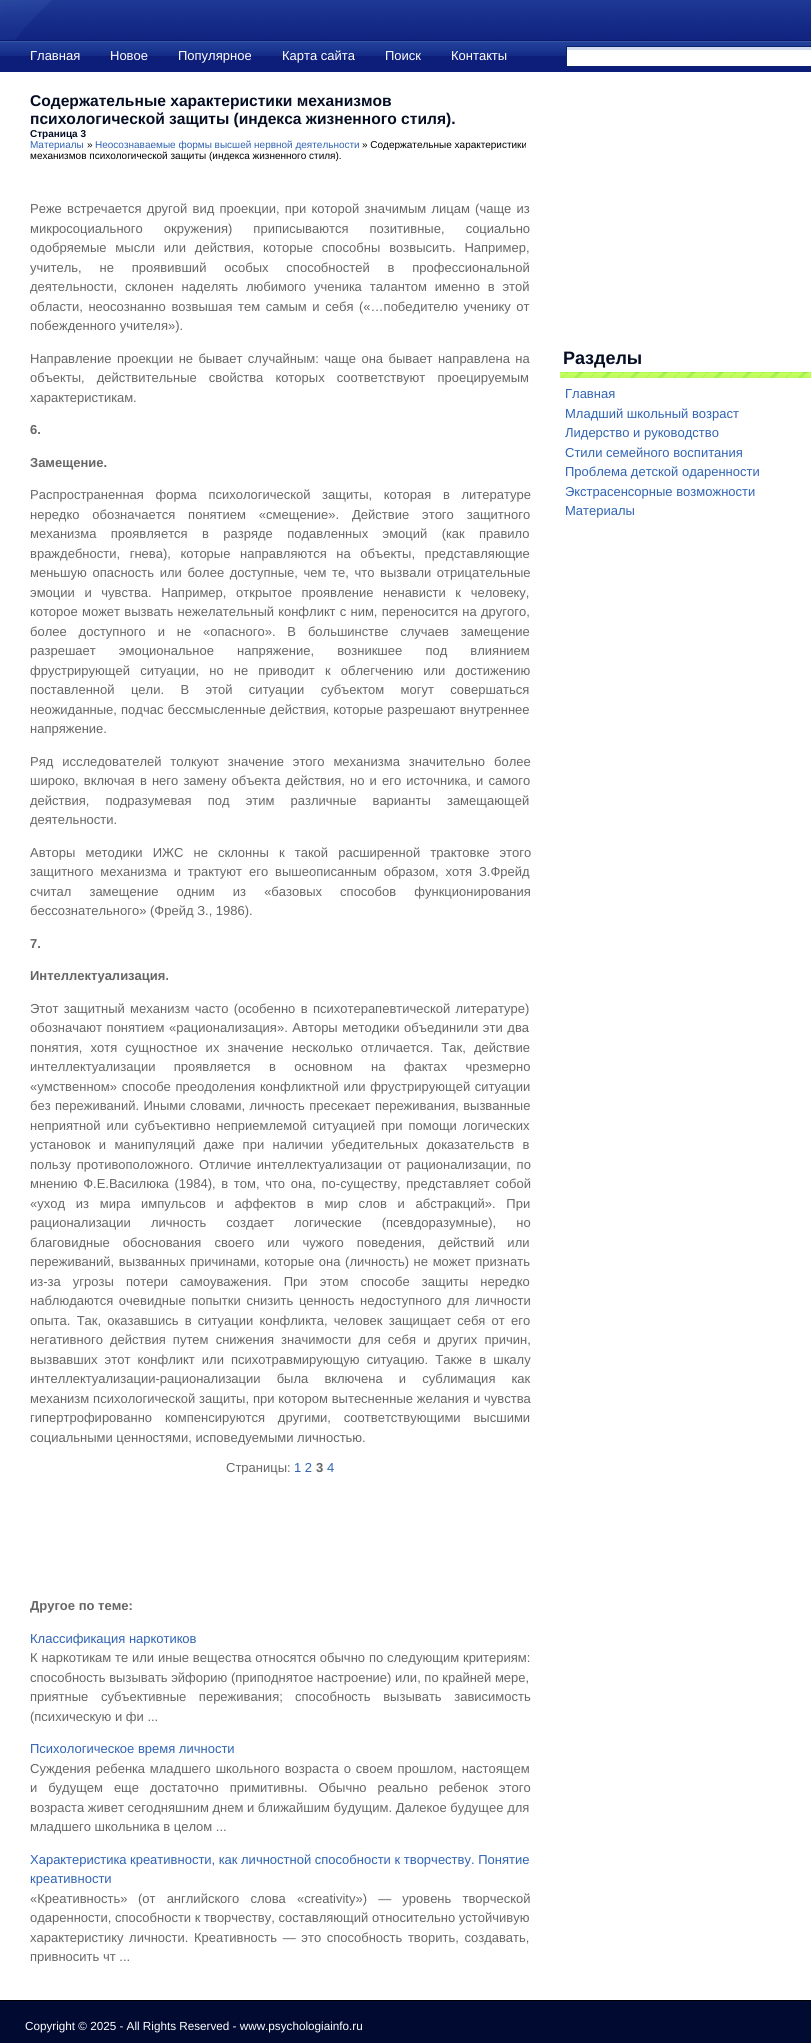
import math
import cairocffi as cairo

surface = cairo.ImageSurface(cairo.FORMAT_RGB24, 811, 2043)
cr = cairo.Context(surface)
options = cairo.FontOptions()
options.set_hint_metrics(cairo.HINT_METRICS_OFF)
options.set_hint_style(cairo.HINT_STYLE_NONE)
cr.set_font_options(options)
cr.set_miter_limit(4)


def use_color(code):
    cr.set_source_rgb(*(v / 255 for v in bytes.fromhex(code[-6:])))


def spaced_text(x, y, s, letter, word):
    cr.move_to(x, y)
    for ch in s:
        cr.show_text(ch)
        cr.rel_move_to(letter + word * (ch == ' '), 0)


def picture(path, x, y, w, h):
    cr.save()
    cr.set_source_surface(cairo.ImageSurface.create_from_png(path), x, y)
    cr.rectangle(x, y, w, h)
    cr.fill()
    cr.restore()


use_color("#ffffff")
cr.paint()
picture("img1.png", 0, 0, 811, 41)
picture("img2.png", 0, 0, 52, 40)
picture("img3.png", 0, 41, 811, 31)
cr.select_font_face("Liberation Sans")
cr.set_font_size(13)
use_color("#ffffff")
cr.move_to(30, 60)
cr.show_text("Главная")
cr.move_to(110, 60)
cr.show_text("Новое")
cr.move_to(178, 60)
cr.show_text("Популярное")
cr.move_to(282, 60)
cr.show_text("Карта сайта")
cr.move_to(385, 60)
cr.show_text("Поиск")
cr.move_to(451, 60)
cr.show_text("Контакты")
cr.rectangle(567, 50, 244, 16)
cr.fill()
use_color("#d3dcec")
cr.rectangle(566, 47, 245, 3)
cr.fill()
cr.rectangle(566.5, 46.5, 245, 20)
use_color("#0b236c")
cr.set_line_width(1)
cr.stroke()
cr.select_font_face("Liberation Sans", cairo.FONT_SLANT_NORMAL, cairo.FONT_WEIGHT_BOLD)
cr.set_font_size(15.6)
use_color("#050d24")
cr.move_to(30, 106)
cr.show_text("Содержательные характеристики механизмов")
cr.move_to(30, 124)
cr.show_text("психологической защиты (индекса жизненного стиля).")
cr.set_font_size(10)
cr.move_to(30, 137)
cr.show_text("Страница 3")
cr.select_font_face("Liberation Sans")
use_color("#2f63b3")
cr.move_to(30, 148)
cr.show_text("Материалы")
use_color("#000000")
cr.move_to(87, 148)
cr.show_text("»")
use_color("#2f63b3")
cr.move_to(95, 148)
cr.show_text("Неосознаваемые формы высшей нервной деятельности")
use_color("#000000")
cr.move_to(362, 148)
cr.show_text("» Содержательные характеристики")
cr.move_to(30, 159)
cr.show_text("механизмов психологической защиты (индекса жизненного стиля).")
cr.set_font_size(13)
use_color("#666666")
spaced_text(30, 213, "Реже встречается другой вид проекции, при которой значимым лицам (чаще из", 0, 1.6)
spaced_text(30, 233, "микросоциального окружения) приписываются позитивные, социально", 0, 17.5)
spaced_text(30, 252, "одобряемые мысли или действия, которые способны возвысить. Например,", 0, 5.25)
spaced_text(30, 272, "учитель, не проявивший особых способностей в профессиональной", 0, 14.25)
spaced_text(30, 291, "деятельности, склонен наделять любимого ученика талантом именно в этой", 0, 4.25)
spaced_text(30, 311, "области, неосознанно возвышая тем самым и себя («…победителю ученику от", 0, 2)
cr.move_to(30, 330)
cr.show_text("побежденного учителя»).")
spaced_text(30, 363, "Направление проекции не бывает случайным: чаще она бывает направлена на", 0, 1.75)
spaced_text(30, 382, "объекты, действительные свойства которых соответствуют проецируемым", 0, 8.5)
cr.move_to(30, 402)
cr.show_text("характеристикам.")
cr.select_font_face("Liberation Sans", cairo.FONT_SLANT_NORMAL, cairo.FONT_WEIGHT_BOLD)
cr.move_to(30, 434)
cr.show_text("6.")
cr.move_to(30, 467)
cr.show_text("Замещение.")
cr.select_font_face("Liberation Sans")
spaced_text(30, 499, "Распространенная форма психологической защиты, которая в литературе", 0, 8)
spaced_text(30, 519, "нередко обозначается понятием «смещение». Действие этого защитного", 0, 9.25)
spaced_text(30, 538, "механизма проявляется в разряде подавленных эмоций (как правило", 0, 10.75)
spaced_text(30, 558, "враждебности, гнева), которые направляются на объекты, представляющие", 0, 6)
spaced_text(30, 577, "меньшую опасность или более доступные, чем те, что вызвали отрицательные", 0, 2)
spaced_text(30, 597, "эмоции и чувства. Например, открытое проявление ненависти к человеку,", 0, 6)
spaced_text(30, 616, "которое может вызвать нежелательный конфликт с ним, переносится на другого,", 0, 0.6)
spaced_text(30, 636, "более доступного и не «опасного». В большинстве случаев замещение", 0, 8.25)
spaced_text(30, 655, "разрешает эмоциональное напряжение, возникшее под влиянием", 0, 19.5)
spaced_text(30, 675, "фрустрирующей ситуации, но не приводит к облегчению или достижению", 0, 6.5)
spaced_text(30, 694, "поставленной цели. В этой ситуации субъектом могут совершаться", 0, 12.75)
spaced_text(30, 714, "неожиданные, подчас бессмысленные действия, которые разрешают внутреннее", 0, 0.5)
cr.move_to(30, 733)
cr.show_text("напряжение.")
spaced_text(30, 766, "Ряд исследователей толкуют значение этого механизма значительно более", 0, 5.25)
spaced_text(30, 785, "широко, включая в него замену объекта действия, но и его источника, и самого", 0, 1.5)
spaced_text(30, 805, "действия, подразумевая под этим различные варианты замещающей", 0, 12.5)
cr.move_to(30, 824)
cr.show_text("деятельности.")
spaced_text(30, 857, "Авторы методики ИЖС не склонны к такой расширенной трактовке этого", 0, 6.5)
spaced_text(30, 876, "защитного механизма и трактуют его вышеописанным образом, хотя З.Фрейд", 0, 3.25)
spaced_text(30, 896, "считал замещение одним из «базовых способов функционирования", 0, 14.5)
cr.move_to(30, 915)
cr.show_text("бессознательного» (Фрейд З., 1986).")
cr.select_font_face("Liberation Sans", cairo.FONT_SLANT_NORMAL, cairo.FONT_WEIGHT_BOLD)
cr.move_to(30, 948)
cr.show_text("7.")
cr.move_to(30, 980)
cr.show_text("Интеллектуализация.")
cr.select_font_face("Liberation Sans")
spaced_text(30, 1013, "Этот защитный механизм часто (особенно в психотерапевтической литературе)", 0, 1.75)
spaced_text(30, 1032, "обозначают понятием «рационализация». Авторы методики объединили эти два", 0, 1)
spaced_text(30, 1052, "понятия, хотя сущностное их значение несколько отличается. Так, действие", 0, 4.5)
spaced_text(30, 1071, "интеллектуализации проявляется в основном на фактах чрезмерно", 0, 14.75)
spaced_text(30, 1091, "«умственном» способе преодоления конфликтной или фрустрирующей ситуации", 0, 1)
spaced_text(30, 1110, "без переживаний. Иными словами, личность пресекает переживания, вызванные", 0, 0.75)
spaced_text(30, 1130, "неприятной или субъективно неприемлемой ситуацией при помощи логических", 0, 2.25)
spaced_text(30, 1149, "установок и манипуляций даже при наличии убедительных доказательств в", 0, 4.75)
spaced_text(30, 1169, "пользу противоположного. Отличие интеллектуализации от рационализации, по", 0, 2)
spaced_text(30, 1188, "мнению Ф.Е.Василюка (1984), в том, что она, по-существу, представляет собой", 0, 2)
spaced_text(30, 1208, "«уход из мира импульсов и аффектов в мир слов и абстракций». При", 0, 7.1)
spaced_text(30, 1227, "рационализации личность создает логические (псевдоразумные), но", 0, 16.5)
spaced_text(30, 1247, "благовидные обоснования своего или чужого поведения, действий или", 0, 9.5)
spaced_text(30, 1266, "переживаний, вызванных причинами, которые она (личность) не может признать", 0, 1)
spaced_text(30, 1286, "из-за угрозы потери самоуважения. При этом способе защиты нередко", 0, 8.5)
spaced_text(30, 1305, "наблюдаются очевидные попытки снизить ценность недоступного для личности", 0, 2)
spaced_text(30, 1325, "опыта. Так, оказавшись в ситуации конфликта, человек защищает себя от его", 0, 2.6)
spaced_text(30, 1344, "негативного действия путем снижения значимости для себя и других причин,", 0, 3.5)
spaced_text(30, 1364, "вызвавших этот конфликт или психотравмирующую ситуацию. Также в шкалу", 0, 3.5)
spaced_text(30, 1383, "интеллектуализации-рационализации была включена и сублимация как", 0, 12.5)
spaced_text(30, 1403, "механизм психологической защиты, при котором вытесненные желания и чувства", 0, 0.25)
spaced_text(30, 1422, "гипертрофированно компенсируются другими, соответствующими высшими", 0, 9.25)
cr.move_to(30, 1442)
cr.show_text("социальными ценностями, исповедуемыми личностью.")
cr.move_to(226, 1472)
cr.show_text("Страницы:")
use_color("#2f63b3")
cr.move_to(294, 1472)
cr.show_text("1 2")
cr.select_font_face("Liberation Sans", cairo.FONT_SLANT_NORMAL, cairo.FONT_WEIGHT_BOLD)
use_color("#666666")
cr.move_to(316, 1472)
cr.show_text("3")
cr.select_font_face("Liberation Sans")
use_color("#2f63b3")
cr.move_to(327, 1472)
cr.show_text("4")
cr.select_font_face("Liberation Sans", cairo.FONT_SLANT_NORMAL, cairo.FONT_WEIGHT_BOLD)
use_color("#666666")
cr.move_to(30, 1610)
cr.show_text("Другое по теме:")
cr.select_font_face("Liberation Sans")
use_color("#2f63b3")
cr.move_to(30, 1643)
cr.show_text("Классификация наркотиков")
use_color("#666666")
spaced_text(30, 1662, "К наркотикам те или иные вещества относятся обычно по следующим критериям:", 0, 0.25)
cr.move_to(30, 1682)
cr.show_text("способность вызывать эйфорию (приподнятое настроение) или, по крайней мере,")
spaced_text(30, 1701, "приятные субъективные переживания;", 0, 9)
spaced_text(295, 1701, "способность вызывать зависимость", 0, 9)
cr.move_to(30, 1721)
cr.show_text("(психическую и фи ...")
use_color("#2f63b3")
cr.move_to(30, 1753)
cr.show_text("Психологическое время личности")
use_color("#666666")
spaced_text(30, 1773, "Суждения ребенка младшего школьного возраста о своем прошлом, настоящем", 0, 1.25)
spaced_text(30, 1792, "и будущем еще достаточно примитивны. Обычно реально ребенок этого", 0, 7.25)
cr.move_to(30, 1812)
cr.show_text("возраста живет сегодняшним днем и ближайшим будущим. Далекое будущее для")
cr.move_to(30, 1831)
cr.show_text("младшего школьника в целом ...")
use_color("#2f63b3")
cr.move_to(30, 1864)
cr.show_text("Характеристика креативности, как личностной способности к творчеству. Понятие")
cr.move_to(30, 1883)
cr.show_text("креативности")
use_color("#666666")
cr.move_to(30, 1903)
cr.show_text("«Креативность»")
spaced_text(138, 1903, "(от английского слова «creativity») — уровень творческой", 0, 7.5)
cr.move_to(30, 1922)
cr.show_text("одаренности, способности к творчеству, составляющий относительно устойчивую")
spaced_text(30, 1942, "характеристику личности. Креативность — это способность творить, создавать,", 0, 2)
cr.move_to(30, 1961)
cr.show_text("привносить чт ...")
picture("img4.png", 560, 372, 251, 6)
cr.select_font_face("Liberation Sans", cairo.FONT_SLANT_NORMAL, cairo.FONT_WEIGHT_BOLD)
cr.set_font_size(18)
use_color("#050d24")
cr.move_to(563, 364)
cr.show_text("Разделы")
cr.select_font_face("Liberation Sans")
cr.set_font_size(13)
use_color("#2f63b3")
cr.move_to(565, 398)
cr.show_text("Главная")
cr.move_to(565, 418)
cr.show_text("Младший школьный возраст")
cr.move_to(565, 437)
cr.show_text("Лидерство и руководство")
cr.move_to(565, 457)
cr.show_text("Стили семейного воспитания")
cr.move_to(565, 476)
cr.show_text("Проблема детской одаренности")
cr.move_to(565, 496)
cr.show_text("Экстрасенсорные возможности")
cr.move_to(565, 515)
cr.show_text("Материалы")
use_color("#010b32")
cr.rectangle(0, 2001, 811, 42)
cr.fill()
use_color("#000000")
cr.rectangle(0, 2000, 811, 1)
cr.fill()
cr.set_font_size(11.7)
use_color("#ffffff")
cr.move_to(25, 2030)
cr.show_text("Copyright © 2025 - All Rights Reserved - www.psychologiainfo.ru")
surface.write_to_png("result.png")
